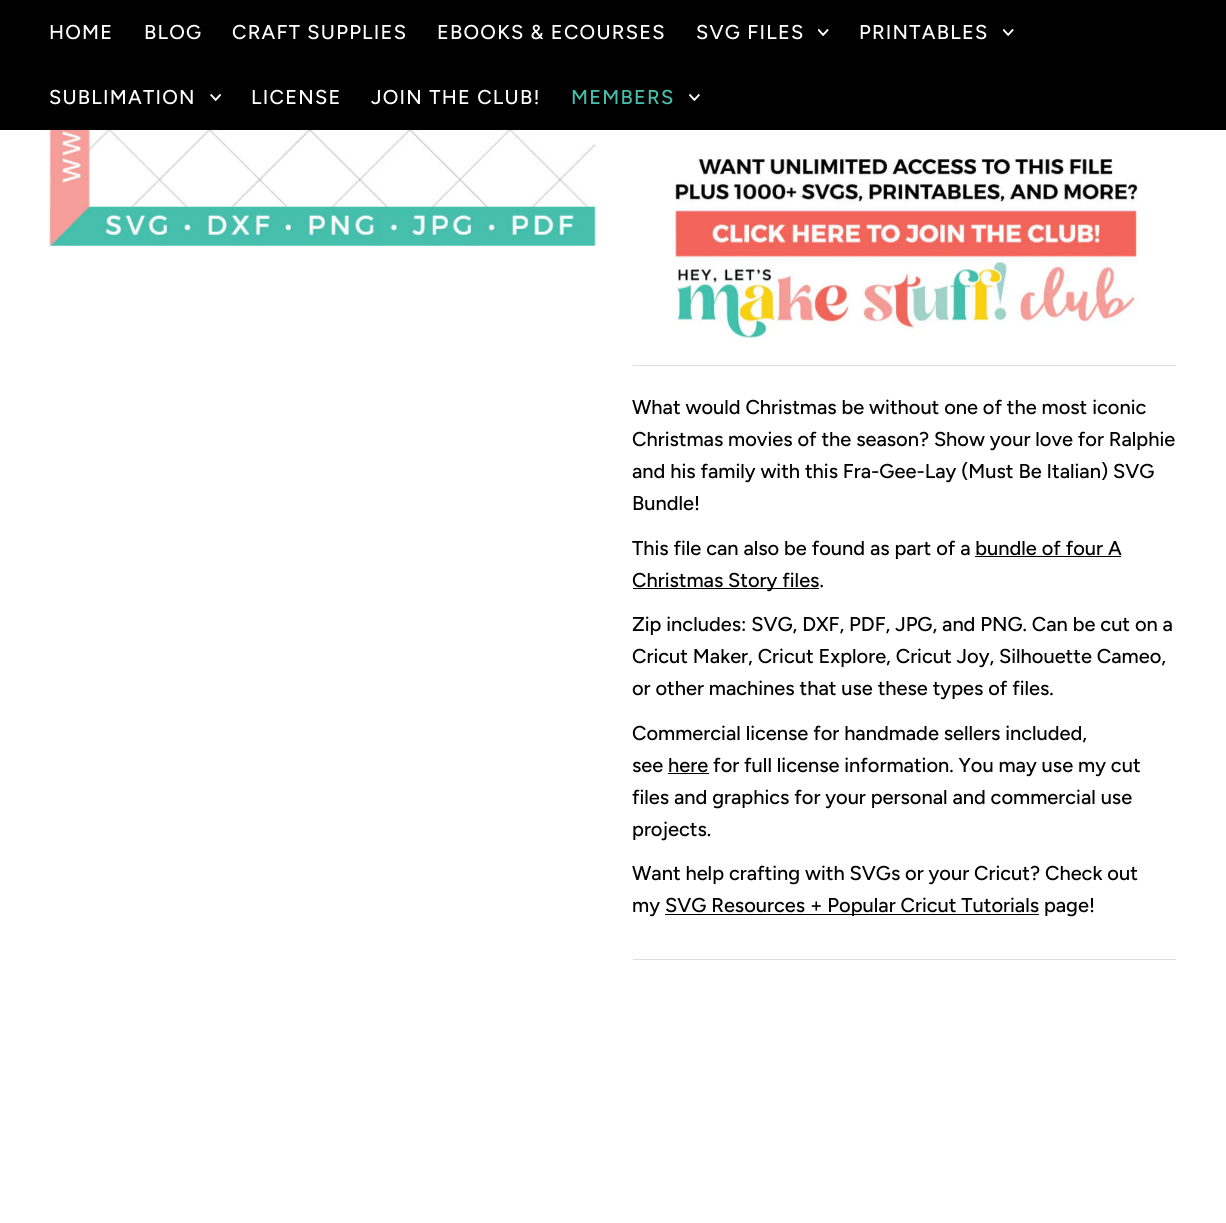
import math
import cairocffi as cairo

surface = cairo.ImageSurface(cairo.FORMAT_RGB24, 1226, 1223)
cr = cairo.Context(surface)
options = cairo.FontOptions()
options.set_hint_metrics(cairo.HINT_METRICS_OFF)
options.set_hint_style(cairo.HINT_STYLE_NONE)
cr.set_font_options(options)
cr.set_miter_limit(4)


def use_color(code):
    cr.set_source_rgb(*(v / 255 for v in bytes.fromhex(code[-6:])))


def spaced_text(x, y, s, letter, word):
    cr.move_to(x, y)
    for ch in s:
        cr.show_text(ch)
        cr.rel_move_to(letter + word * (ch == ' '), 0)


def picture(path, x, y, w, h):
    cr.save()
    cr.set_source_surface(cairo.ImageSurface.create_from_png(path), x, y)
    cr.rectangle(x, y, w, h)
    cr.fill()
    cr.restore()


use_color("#ffffff")
cr.paint()
use_color("#000000")
cr.rectangle(0, 0, 1226, 130)
cr.fill()
cr.select_font_face("Figtree Medium")
cr.set_font_size(20)
use_color("#ffffff")
spaced_text(49, 39, "HOME", 1.25, 0)
spaced_text(144, 39, "BLOG", 1.25, 0)
spaced_text(232, 39, "CRAFT SUPPLIES", 1.25, 0)
spaced_text(437, 39, "EBOOKS & ECOURSES", 1.25, 0)
spaced_text(696, 39, "SVG FILES", 1.25, 0)
picture("img1.png", 818, 29, 11, 7)
spaced_text(859, 39, "PRINTABLES", 1.25, 0)
picture("img1.png", 1003, 29, 11, 7)
spaced_text(49, 104, "SUBLIMATION", 1.25, 0)
picture("img2.png", 210, 94, 11, 7)
spaced_text(251, 104, "LICENSE", 1.25, 0)
spaced_text(371, 104, "JOIN THE CLUB!", 1.25, 0)
use_color("#46bfad")
spaced_text(571, 104, "MEMBERS", 1.25, 0)
picture("img3.png", 689, 94, 11, 7)
picture("img4.png", 49, 130, 547, 116)
picture("img5.png", 672, 158, 468, 181)
use_color("#dddddd")
cr.rectangle(633, 365, 543, 1)
cr.fill()
cr.rectangle(633, 959, 543, 1)
cr.fill()
use_color("#000000")
cr.move_to(632, 414)
cr.show_text("What would Christmas be without one of the most iconic")
cr.move_to(632, 446)
cr.show_text("Christmas movies of the season? Show your love for Ralphie")
cr.move_to(632, 478)
cr.show_text("and his family with this Fra-Gee-Lay (Must Be Italian) SVG")
cr.move_to(632, 510)
cr.show_text("Bundle!")
cr.move_to(632, 555)
cr.show_text("This file can also be found as part of a bundle of four A")
cr.rectangle(633, 588, 186, 1)
cr.fill()
cr.move_to(632, 587)
cr.show_text("Christmas Story files.")
cr.rectangle(975, 556, 146, 1)
cr.fill()
cr.move_to(632, 631)
cr.show_text("Zip includes: SVG, DXF, PDF, JPG, and PNG. Can be cut on a")
cr.move_to(632, 663)
cr.show_text("Cricut Maker, Cricut Explore, Cricut Joy, Silhouette Cameo,")
cr.move_to(632, 695)
cr.show_text("or other machines that use these types of files.")
cr.move_to(632, 740)
cr.show_text("Commercial license for handmade sellers included,")
cr.move_to(632, 772)
cr.show_text("see here for full license information. You may use my cut")
cr.rectangle(668, 773, 41, 1)
cr.fill()
cr.move_to(632, 804)
cr.show_text("files and graphics for your personal and commercial use")
cr.move_to(632, 836)
cr.show_text("projects.")
cr.move_to(632, 880)
cr.show_text("Want help crafting with SVGs or your Cricut? Check out")
cr.move_to(632, 912)
cr.show_text("my")
cr.rectangle(665, 914, 374, 1)
cr.fill()
cr.move_to(665, 912)
cr.show_text("SVG Resources + Popular Cricut Tutorials page!")
surface.write_to_png("result.png")
